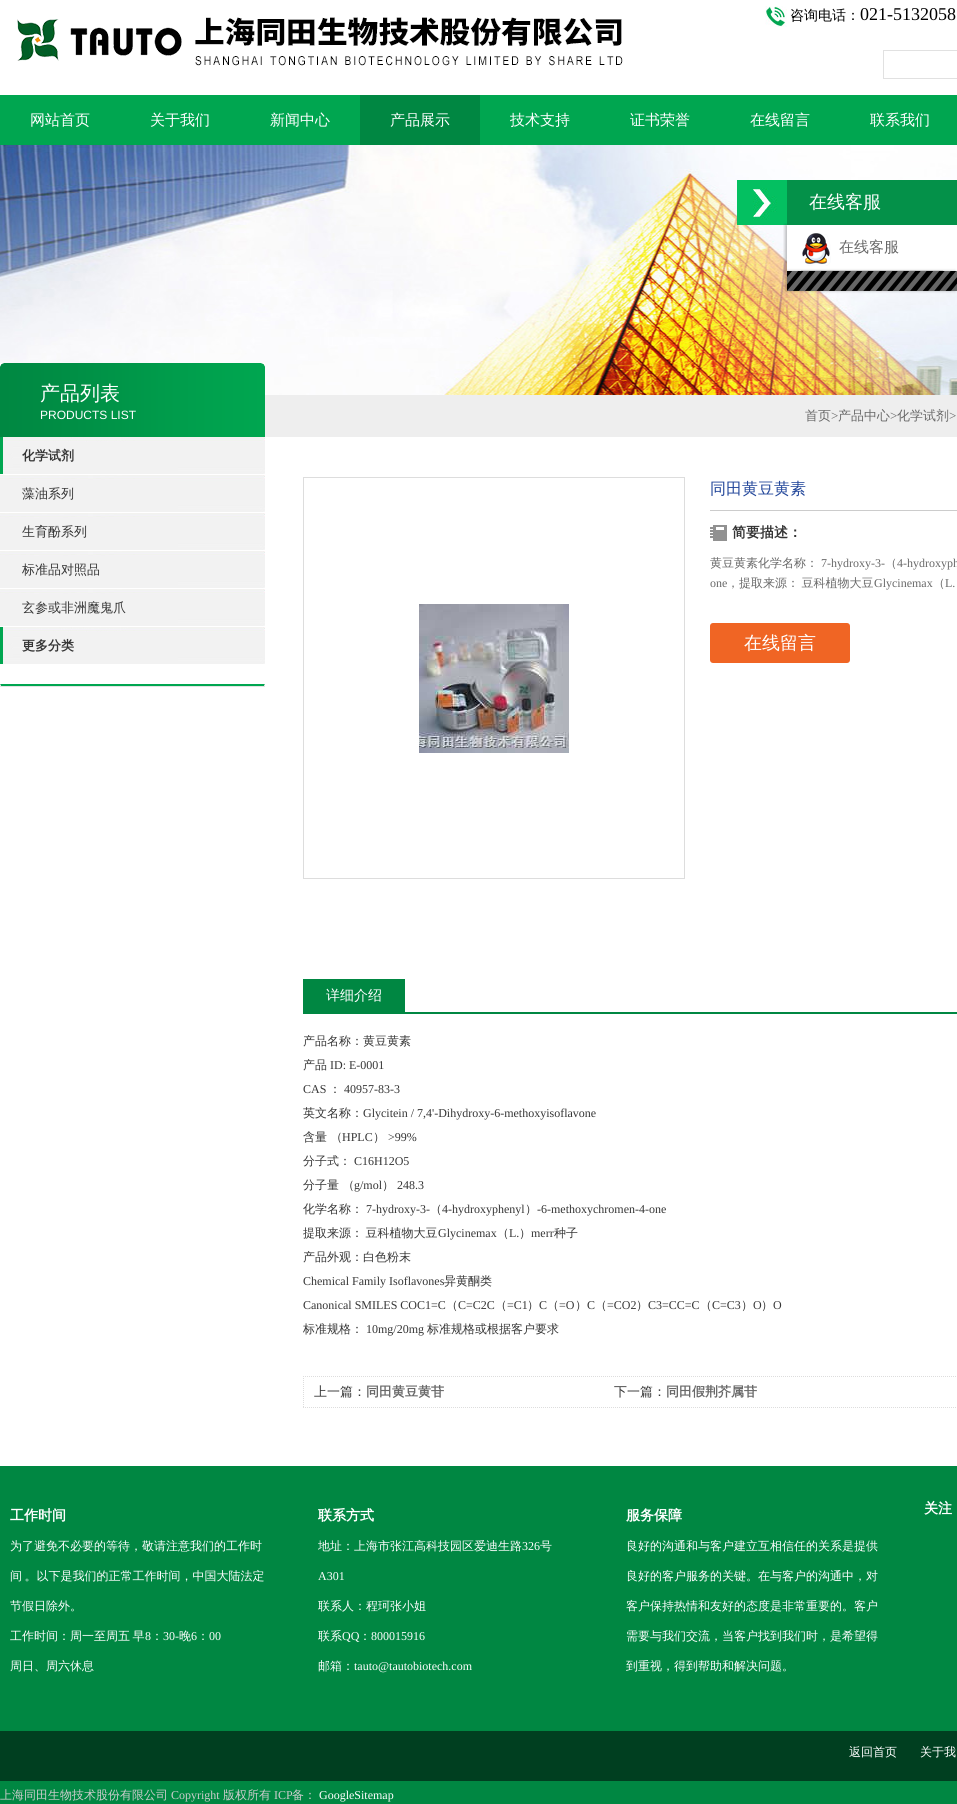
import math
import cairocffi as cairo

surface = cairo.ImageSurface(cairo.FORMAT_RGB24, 957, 1804)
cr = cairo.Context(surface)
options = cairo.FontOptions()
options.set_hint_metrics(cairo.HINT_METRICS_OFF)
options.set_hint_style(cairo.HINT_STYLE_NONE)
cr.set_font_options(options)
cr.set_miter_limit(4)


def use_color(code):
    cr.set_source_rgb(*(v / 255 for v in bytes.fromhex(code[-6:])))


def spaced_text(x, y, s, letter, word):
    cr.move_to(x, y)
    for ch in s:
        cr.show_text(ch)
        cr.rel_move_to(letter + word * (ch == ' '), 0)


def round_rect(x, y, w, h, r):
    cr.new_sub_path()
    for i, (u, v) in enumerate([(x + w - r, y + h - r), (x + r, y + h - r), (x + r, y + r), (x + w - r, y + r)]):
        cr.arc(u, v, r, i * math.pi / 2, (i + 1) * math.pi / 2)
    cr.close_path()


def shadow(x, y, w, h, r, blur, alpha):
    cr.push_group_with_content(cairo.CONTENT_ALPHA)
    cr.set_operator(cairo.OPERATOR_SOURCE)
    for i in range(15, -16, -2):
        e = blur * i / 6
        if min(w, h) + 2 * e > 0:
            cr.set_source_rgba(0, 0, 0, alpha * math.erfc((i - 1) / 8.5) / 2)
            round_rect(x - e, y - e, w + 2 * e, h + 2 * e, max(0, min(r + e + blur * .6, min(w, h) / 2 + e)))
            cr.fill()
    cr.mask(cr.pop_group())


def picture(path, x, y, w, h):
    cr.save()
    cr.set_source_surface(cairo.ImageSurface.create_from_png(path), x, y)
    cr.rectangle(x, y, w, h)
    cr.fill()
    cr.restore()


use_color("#ffffff")
cr.paint()
use_color("#eeeeee")
cr.rectangle(265, 395, 692, 42)
cr.fill()
picture("img1.png", 765, 6, 22, 21)
cr.select_font_face("WenQuanYi Zen Hei Medium")
cr.set_font_size(14)
use_color("#000000")
cr.move_to(790, 20)
cr.show_text("咨询电话：")
cr.select_font_face("Liberation Serif")
cr.set_font_size(18)
cr.move_to(860, 20)
cr.show_text("021-5132058")
use_color("#e1e1e1")
cr.rectangle(883, 50, 74, 1)
cr.fill()
cr.rectangle(883, 78, 74, 1)
cr.fill()
cr.rectangle(883, 50, 1, 29)
cr.fill()
picture("img2.png", 17, 17, 606, 49)
use_color("#00a650")
cr.rectangle(0, 95, 957, 50)
cr.fill()
cr.select_font_face("WenQuanYi Zen Hei Medium")
cr.set_font_size(15)
use_color("#ffffff")
cr.move_to(30, 125)
cr.show_text("网站首页")
cr.move_to(150, 125)
cr.show_text("关于我们")
cr.move_to(270, 125)
cr.show_text("新闻中心")
use_color("#008742")
cr.rectangle(360, 95, 120, 50)
cr.fill()
use_color("#ffffff")
cr.move_to(390, 125)
cr.show_text("产品展示")
cr.move_to(510, 125)
cr.show_text("技术支持")
cr.move_to(630, 125)
cr.show_text("证书荣誉")
cr.move_to(750, 125)
cr.show_text("在线留言")
cr.move_to(870, 125)
cr.show_text("联系我们")
picture("img3.png", 0, 145, 957, 250)
picture("img4.png", 737, 180, 50, 45)
cr.rectangle(787, 225, 170, 46)
cr.fill()
cr.save()
cr.rectangle(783, 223, 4, 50)
cr.clip()
use_color("#000000")
shadow(785, 225, 170, 46, 0, 1.5, 0.25)
cr.restore()
use_color("#049149")
cr.rectangle(787, 180, 170, 45)
cr.fill()
cr.set_font_size(18)
use_color("#ffffff")
cr.move_to(809, 208)
cr.show_text("在线客服")
use_color("#e3e3e3")
cr.rectangle(801, 270, 142, 1)
cr.fill()
use_color("#000000")
shadow(785, 271, 170, 20, 0, 1.5, 0.25)
picture("img5.png", 802, 233, 29, 33)
cr.set_font_size(15)
use_color("#686868")
cr.move_to(839, 252)
cr.show_text("在线客服")
picture("img6.png", 787, 271, 170, 20)
picture("img7.png", 0, 363, 265, 74)
cr.set_font_size(20)
use_color("#ffffff")
cr.move_to(40, 400)
cr.show_text("产品列表")
cr.select_font_face("Liberation Sans")
cr.set_font_size(12)
cr.move_to(40, 419)
cr.show_text("PRODUCTS LIST")
picture("img8.png", 0, 437, 265, 37)
cr.select_font_face("WenQuanYi Zen Hei", cairo.FONT_SLANT_NORMAL, cairo.FONT_WEIGHT_BOLD)
cr.set_font_size(13)
use_color("#353535")
cr.move_to(22, 460)
cr.show_text("化学试剂")
picture("img9.png", 0, 475, 265, 37)
cr.select_font_face("WenQuanYi Zen Hei Medium")
cr.move_to(22, 498)
cr.show_text("藻油系列")
picture("img9.png", 0, 513, 265, 37)
cr.move_to(22, 536)
cr.show_text("生育酚系列")
picture("img9.png", 0, 551, 265, 37)
cr.move_to(22, 574)
cr.show_text("标准品对照品")
picture("img9.png", 0, 589, 265, 37)
cr.move_to(22, 612)
cr.show_text("玄参或非洲魔鬼爪")
picture("img8.png", 0, 627, 265, 37)
cr.select_font_face("WenQuanYi Zen Hei", cairo.FONT_SLANT_NORMAL, cairo.FONT_WEIGHT_BOLD)
cr.move_to(22, 650)
cr.show_text("更多分类")
use_color("#00a650")
cr.new_path()
cr.move_to(0, 684)
cr.line_to(265, 684)
cr.line_to(264, 686)
cr.line_to(1, 686)
cr.close_path()
cr.fill()
use_color("#e4e4e4")
cr.new_path()
cr.move_to(265, 684)
cr.line_to(265, 687)
cr.line_to(264, 686)
cr.close_path()
cr.fill()
cr.rectangle(0, 686, 265, 1)
cr.fill()
cr.new_path()
cr.move_to(0, 687)
cr.line_to(0, 684)
cr.line_to(1, 686)
cr.close_path()
cr.fill()
cr.select_font_face("WenQuanYi Zen Hei Medium")
use_color("#686868")
cr.move_to(805, 420)
cr.show_text("首页")
cr.select_font_face("Liberation Serif")
cr.move_to(831, 420)
cr.show_text(">")
cr.select_font_face("WenQuanYi Zen Hei Medium")
cr.move_to(838, 420)
cr.show_text("产品中心")
cr.select_font_face("Liberation Serif")
cr.move_to(890, 420)
cr.show_text(">")
cr.select_font_face("WenQuanYi Zen Hei Medium")
cr.move_to(897, 420)
cr.show_text("化学试剂")
cr.select_font_face("Liberation Serif")
cr.move_to(949, 420)
cr.show_text(">")
cr.rectangle(303.5, 477.5, 381, 401)
use_color("#dddddd")
cr.set_line_width(1)
cr.stroke()
picture("img10.png", 419, 604, 150, 149)
use_color("#cccccc")
cr.rectangle(710, 510, 247, 1)
cr.fill()
cr.select_font_face("WenQuanYi Zen Hei Medium")
cr.set_font_size(16)
use_color("#22469a")
cr.move_to(710, 494)
cr.show_text("同田黄豆黄素")
picture("img11.png", 710, 525, 17, 16)
cr.select_font_face("WenQuanYi Zen Hei", cairo.FONT_SLANT_NORMAL, cairo.FONT_WEIGHT_BOLD)
cr.set_font_size(14)
use_color("#353535")
cr.move_to(732, 537)
cr.show_text("简要描述：")
cr.select_font_face("WenQuanYi Zen Hei Medium")
cr.set_font_size(12)
use_color("#686868")
cr.move_to(710, 567)
cr.show_text("黄豆黄素化学名称：")
cr.select_font_face("Liberation Serif")
cr.move_to(821, 567)
cr.show_text("7-hydroxy-3-")
cr.select_font_face("WenQuanYi Zen Hei Medium")
cr.move_to(885, 567)
cr.show_text("（")
cr.select_font_face("Liberation Serif")
cr.move_to(897, 567)
cr.show_text("4-hydroxyph")
cr.move_to(710, 587)
cr.show_text("one")
cr.select_font_face("WenQuanYi Zen Hei Medium")
spaced_text(727, 587, "，提取来源： 豆科植物大豆", 0, -1)
cr.select_font_face("Liberation Serif")
cr.move_to(874, 587)
cr.show_text("Glycinemax")
cr.select_font_face("WenQuanYi Zen Hei Medium")
cr.move_to(933, 587)
cr.show_text("（")
cr.select_font_face("Liberation Serif")
cr.move_to(945, 587)
cr.show_text("L.")
use_color("#f06524")
round_rect(710, 623, 140, 40, 3)
cr.fill()
cr.select_font_face("WenQuanYi Zen Hei Medium")
cr.set_font_size(18)
use_color("#ffffff")
cr.move_to(744, 649)
cr.show_text("在线留言")
use_color("#008742")
cr.rectangle(303, 1012, 654, 2)
cr.fill()
cr.rectangle(303, 979, 102, 33)
cr.fill()
cr.set_font_size(14)
use_color("#ffffff")
cr.move_to(326, 1000)
cr.show_text("详细介绍")
cr.set_font_size(12)
use_color("#353535")
cr.move_to(303, 1045)
cr.show_text("产品名称：黄豆黄素")
cr.move_to(303, 1069)
cr.show_text("产品")
cr.select_font_face("Liberation Serif")
cr.move_to(330, 1069)
cr.show_text("ID: E-0001")
cr.move_to(303, 1093)
cr.show_text("CAS")
cr.select_font_face("WenQuanYi Zen Hei Medium")
cr.move_to(329, 1093)
cr.show_text("：")
cr.select_font_face("Liberation Serif")
cr.move_to(344, 1093)
cr.show_text("40957-83-3")
cr.select_font_face("WenQuanYi Zen Hei Medium")
cr.move_to(303, 1117)
cr.show_text("英文名称：")
cr.select_font_face("Liberation Serif")
cr.move_to(363, 1117)
cr.show_text("Glycitein / 7,4'-Dihydroxy-6-methoxyisoflavone")
cr.select_font_face("WenQuanYi Zen Hei Medium")
cr.move_to(303, 1141)
cr.show_text("含量 （")
cr.select_font_face("Liberation Serif")
cr.move_to(342, 1141)
cr.show_text("HPLC")
cr.select_font_face("WenQuanYi Zen Hei Medium")
cr.move_to(373, 1141)
cr.show_text("）")
cr.select_font_face("Liberation Serif")
cr.move_to(388, 1141)
cr.show_text(">99%")
cr.select_font_face("WenQuanYi Zen Hei Medium")
cr.move_to(303, 1165)
cr.show_text("分子式：")
cr.select_font_face("Liberation Serif")
cr.move_to(354, 1165)
cr.show_text("C16H12O5")
cr.select_font_face("WenQuanYi Zen Hei Medium")
cr.move_to(303, 1189)
cr.show_text("分子量 （")
cr.select_font_face("Liberation Serif")
cr.move_to(354, 1189)
cr.show_text("g/mol")
cr.select_font_face("WenQuanYi Zen Hei Medium")
cr.move_to(382, 1189)
cr.show_text("）")
cr.select_font_face("Liberation Serif")
cr.move_to(397, 1189)
cr.show_text("248.3")
cr.select_font_face("WenQuanYi Zen Hei Medium")
cr.move_to(303, 1213)
cr.show_text("化学名称：")
cr.select_font_face("Liberation Serif")
cr.move_to(366, 1213)
cr.show_text("7-hydroxy-3-")
cr.select_font_face("WenQuanYi Zen Hei Medium")
cr.move_to(430, 1213)
cr.show_text("（")
cr.select_font_face("Liberation Serif")
cr.move_to(442, 1213)
cr.show_text("4-hydroxyphenyl")
cr.select_font_face("WenQuanYi Zen Hei Medium")
cr.move_to(525, 1213)
cr.show_text("）")
cr.select_font_face("Liberation Serif")
cr.move_to(537, 1213)
cr.show_text("-6-methoxychromen-4-one")
cr.select_font_face("WenQuanYi Zen Hei Medium")
spaced_text(303, 1237, "提取来源： 豆科植物大豆", 0, -1)
cr.select_font_face("Liberation Serif")
cr.move_to(438, 1237)
cr.show_text("Glycinemax")
cr.select_font_face("WenQuanYi Zen Hei Medium")
cr.move_to(497, 1237)
cr.show_text("（")
cr.select_font_face("Liberation Serif")
cr.move_to(509, 1237)
cr.show_text("L.")
cr.select_font_face("WenQuanYi Zen Hei Medium")
cr.move_to(519, 1237)
cr.show_text("）")
cr.select_font_face("Liberation Serif")
cr.move_to(531, 1237)
cr.show_text("merr")
cr.select_font_face("WenQuanYi Zen Hei Medium")
cr.move_to(554, 1237)
cr.show_text("种子")
cr.move_to(303, 1261)
cr.show_text("产品外观：白色粉末")
cr.select_font_face("Liberation Serif")
cr.move_to(303, 1285)
cr.show_text("Chemical Family Isoflavones")
cr.select_font_face("WenQuanYi Zen Hei Medium")
cr.move_to(444, 1285)
cr.show_text("异黄酮类")
cr.select_font_face("Liberation Serif")
cr.move_to(303, 1309)
cr.show_text("Canonical SMILES COC1=C")
cr.select_font_face("WenQuanYi Zen Hei Medium")
cr.move_to(446, 1309)
cr.show_text("（")
cr.select_font_face("Liberation Serif")
cr.move_to(458, 1309)
cr.show_text("C=C2C")
cr.select_font_face("WenQuanYi Zen Hei Medium")
cr.move_to(495, 1309)
cr.show_text("（")
cr.select_font_face("Liberation Serif")
cr.move_to(507, 1309)
cr.show_text("=C1")
cr.select_font_face("WenQuanYi Zen Hei Medium")
cr.move_to(527, 1309)
cr.show_text("）")
cr.select_font_face("Liberation Serif")
cr.move_to(539, 1309)
cr.show_text("C")
cr.select_font_face("WenQuanYi Zen Hei Medium")
cr.move_to(547, 1309)
cr.show_text("（")
cr.select_font_face("Liberation Serif")
cr.move_to(559, 1309)
cr.show_text("=O")
cr.select_font_face("WenQuanYi Zen Hei Medium")
cr.move_to(575, 1309)
cr.show_text("）")
cr.select_font_face("Liberation Serif")
cr.move_to(587, 1309)
cr.show_text("C")
cr.select_font_face("WenQuanYi Zen Hei Medium")
cr.move_to(595, 1309)
cr.show_text("（")
cr.select_font_face("Liberation Serif")
cr.move_to(607, 1309)
cr.show_text("=CO2")
cr.select_font_face("WenQuanYi Zen Hei Medium")
cr.move_to(636, 1309)
cr.show_text("）")
cr.select_font_face("Liberation Serif")
cr.move_to(648, 1309)
cr.show_text("C3=CC=C")
cr.select_font_face("WenQuanYi Zen Hei Medium")
cr.move_to(700, 1309)
cr.show_text("（")
cr.select_font_face("Liberation Serif")
cr.move_to(712, 1309)
cr.show_text("C=C3")
cr.select_font_face("WenQuanYi Zen Hei Medium")
cr.move_to(741, 1309)
cr.show_text("）")
cr.select_font_face("Liberation Serif")
cr.move_to(753, 1309)
cr.show_text("O")
cr.select_font_face("WenQuanYi Zen Hei Medium")
cr.move_to(761, 1309)
cr.show_text("）")
cr.select_font_face("Liberation Serif")
cr.move_to(773, 1309)
cr.show_text("O")
cr.select_font_face("WenQuanYi Zen Hei Medium")
cr.move_to(303, 1333)
cr.show_text("标准规格：")
cr.select_font_face("Liberation Serif")
cr.move_to(366, 1333)
cr.show_text("10mg/20mg")
cr.select_font_face("WenQuanYi Zen Hei Medium")
cr.move_to(427, 1333)
cr.show_text("标准规格或根据客户要求")
cr.new_path()
cr.move_to(303, 1376.5)
cr.line_to(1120, 1376.5)
use_color("#dddddd")
cr.set_dash([1, 1])
cr.stroke()
cr.new_path()
cr.move_to(303, 1407.5)
cr.line_to(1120, 1407.5)
cr.stroke()
cr.new_path()
cr.move_to(303.5, 1376)
cr.line_to(303.5, 1408)
cr.stroke()
cr.set_font_size(13)
use_color("#353535")
cr.move_to(314, 1396)
cr.show_text("上一篇：")
cr.select_font_face("WenQuanYi Zen Hei", cairo.FONT_SLANT_NORMAL, cairo.FONT_WEIGHT_BOLD)
use_color("#686868")
cr.move_to(366, 1396)
cr.show_text("同田黄豆黄苷")
cr.select_font_face("WenQuanYi Zen Hei Medium")
use_color("#353535")
cr.move_to(614, 1396)
cr.show_text("下一篇：")
cr.select_font_face("WenQuanYi Zen Hei", cairo.FONT_SLANT_NORMAL, cairo.FONT_WEIGHT_BOLD)
use_color("#686868")
cr.move_to(666, 1396)
cr.show_text("同田假荆芥属苷")
use_color("#008742")
cr.rectangle(0, 1466, 957, 338)
cr.fill()
cr.set_font_size(14)
use_color("#ffffff")
cr.move_to(10, 1520)
cr.show_text("工作时间")
cr.select_font_face("WenQuanYi Zen Hei Medium")
cr.set_font_size(12)
cr.move_to(10, 1550)
cr.show_text("为了避免不必要的等待，敬请注意我们的工作时")
spaced_text(10, 1580, "间 。以下是我们的正常工作时间，中国大陆法定", 0, -1)
cr.move_to(10, 1610)
cr.show_text("节假日除外。")
spaced_text(10, 1640, "工作时间：周一至周五 早", 0, -1)
cr.select_font_face("Liberation Serif")
cr.move_to(145, 1640)
cr.show_text("8")
cr.select_font_face("WenQuanYi Zen Hei Medium")
cr.move_to(151, 1640)
cr.show_text("：")
cr.select_font_face("Liberation Serif")
cr.move_to(163, 1640)
cr.show_text("30-")
cr.select_font_face("WenQuanYi Zen Hei Medium")
cr.move_to(179, 1640)
cr.show_text("晚")
cr.select_font_face("Liberation Serif")
cr.move_to(191, 1640)
cr.show_text("6")
cr.select_font_face("WenQuanYi Zen Hei Medium")
cr.move_to(197, 1640)
cr.show_text("：")
cr.select_font_face("Liberation Serif")
cr.move_to(209, 1640)
cr.show_text("00")
cr.select_font_face("WenQuanYi Zen Hei Medium")
cr.move_to(10, 1670)
cr.show_text("周日、周六休息")
cr.select_font_face("WenQuanYi Zen Hei", cairo.FONT_SLANT_NORMAL, cairo.FONT_WEIGHT_BOLD)
cr.set_font_size(14)
cr.move_to(318, 1520)
cr.show_text("联系方式")
cr.select_font_face("WenQuanYi Zen Hei Medium")
cr.set_font_size(12)
cr.move_to(318, 1550)
cr.show_text("地址：上海市张江高科技园区爱迪生路")
cr.select_font_face("Liberation Serif")
cr.move_to(522, 1550)
cr.show_text("326")
cr.select_font_face("WenQuanYi Zen Hei Medium")
cr.move_to(540, 1550)
cr.show_text("号")
cr.select_font_face("Liberation Serif")
cr.move_to(318, 1580)
cr.show_text("A301")
cr.select_font_face("WenQuanYi Zen Hei Medium")
cr.move_to(318, 1610)
cr.show_text("联系人：程珂张小姐")
cr.move_to(318, 1640)
cr.show_text("联系")
cr.select_font_face("Liberation Serif")
cr.move_to(342, 1640)
cr.show_text("QQ")
cr.select_font_face("WenQuanYi Zen Hei Medium")
cr.move_to(359, 1640)
cr.show_text("：")
cr.select_font_face("Liberation Serif")
cr.move_to(371, 1640)
cr.show_text("800015916")
cr.select_font_face("WenQuanYi Zen Hei Medium")
cr.move_to(318, 1670)
cr.show_text("邮箱：")
cr.select_font_face("Liberation Serif")
cr.move_to(354, 1670)
cr.show_text("tauto@tautobiotech.com")
cr.select_font_face("WenQuanYi Zen Hei", cairo.FONT_SLANT_NORMAL, cairo.FONT_WEIGHT_BOLD)
cr.set_font_size(14)
cr.move_to(626, 1520)
cr.show_text("服务保障")
cr.select_font_face("WenQuanYi Zen Hei Medium")
cr.set_font_size(12)
cr.move_to(626, 1550)
cr.show_text("良好的沟通和与客户建立互相信任的关系是提供")
cr.move_to(626, 1580)
cr.show_text("良好的客户服务的关键。在与客户的沟通中，对")
cr.move_to(626, 1610)
cr.show_text("客户保持热情和友好的态度是非常重要的。客户")
cr.move_to(626, 1640)
cr.show_text("需要与我们交流，当客户找到我们时，是希望得")
cr.move_to(626, 1670)
cr.show_text("到重视，得到帮助和解决问题。")
cr.select_font_face("WenQuanYi Zen Hei", cairo.FONT_SLANT_NORMAL, cairo.FONT_WEIGHT_BOLD)
cr.set_font_size(14)
cr.move_to(924, 1513)
cr.show_text("关注")
use_color("#003f20")
cr.rectangle(0, 1731, 957, 50)
cr.fill()
cr.select_font_face("WenQuanYi Zen Hei Medium")
cr.set_font_size(12)
use_color("#ffffff")
cr.move_to(849, 1756)
cr.show_text("返回首页")
cr.move_to(920, 1756)
cr.show_text("关于我")
use_color("#cccccc")
cr.move_to(0, 1799)
cr.show_text("上海同田生物技术股份有限公司")
cr.select_font_face("Liberation Serif")
cr.move_to(171, 1799)
cr.show_text("Copyright")
cr.select_font_face("WenQuanYi Zen Hei Medium")
cr.move_to(223, 1799)
cr.show_text("版权所有")
cr.select_font_face("Liberation Serif")
cr.move_to(274, 1799)
cr.show_text("ICP")
cr.select_font_face("WenQuanYi Zen Hei Medium")
cr.move_to(292, 1799)
cr.show_text("备：")
cr.select_font_face("Liberation Serif")
use_color("#ffffff")
cr.move_to(319, 1799)
cr.show_text("GoogleSitemap")
surface.write_to_png("result.png")
